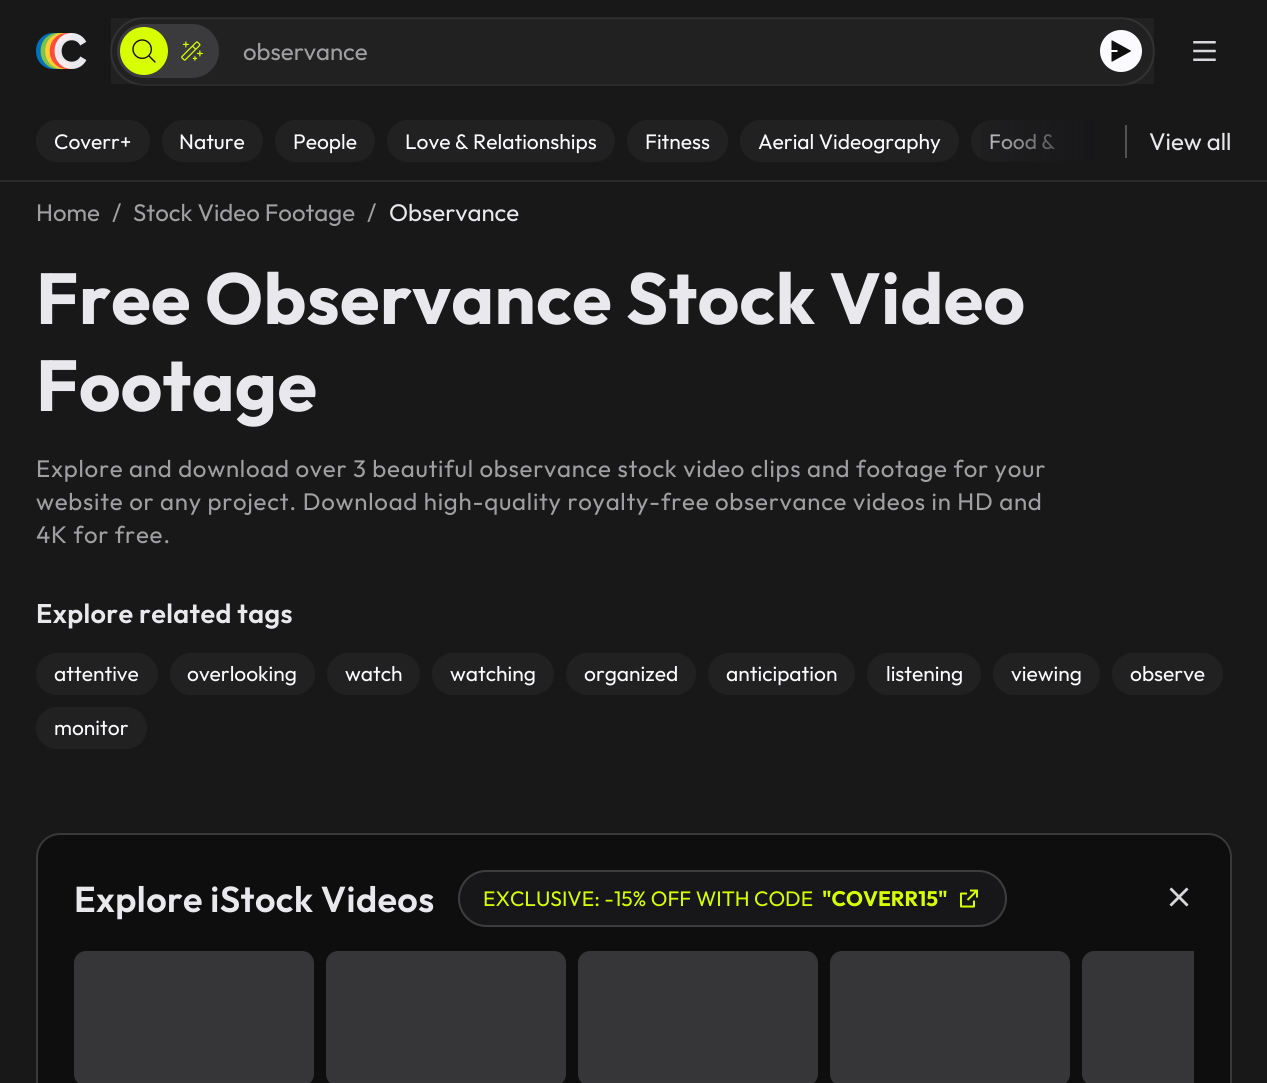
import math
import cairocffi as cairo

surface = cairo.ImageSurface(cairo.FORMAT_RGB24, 1267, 1083)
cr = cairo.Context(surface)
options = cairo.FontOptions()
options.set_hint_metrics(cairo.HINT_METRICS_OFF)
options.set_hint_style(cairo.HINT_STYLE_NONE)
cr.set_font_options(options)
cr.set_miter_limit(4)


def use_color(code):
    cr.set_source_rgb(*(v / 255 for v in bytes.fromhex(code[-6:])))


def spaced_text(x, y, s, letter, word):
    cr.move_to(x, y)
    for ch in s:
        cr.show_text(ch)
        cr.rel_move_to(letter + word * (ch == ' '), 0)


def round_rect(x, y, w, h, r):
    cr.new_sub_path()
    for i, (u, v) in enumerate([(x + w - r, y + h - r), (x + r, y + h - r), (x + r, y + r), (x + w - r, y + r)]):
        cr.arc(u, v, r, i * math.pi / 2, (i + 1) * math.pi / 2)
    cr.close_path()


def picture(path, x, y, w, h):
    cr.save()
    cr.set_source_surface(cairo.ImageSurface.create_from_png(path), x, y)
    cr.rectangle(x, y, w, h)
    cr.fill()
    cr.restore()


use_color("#181819")
cr.paint()
use_color("#2a2a2b")
cr.rectangle(0, 180, 1267, 2)
cr.fill()
picture("img1.png", 36, 33, 51, 36)
round_rect(111, 18, 1043, 67, 33.5)
cr.stroke()
cr.set_source_rgba(0.98, 0.98, 1, 0.04)
cr.rectangle(111, 18, 1043, 66)
cr.fill()
use_color("#3b3b3d")
round_rect(117, 24, 102, 54, 27)
cr.fill()
use_color("#d7ff00")
cr.arc(144, 51, 24, 0, 2 * math.pi)
cr.fill()
picture("img2.png", 132, 39, 24, 24)
picture("img3.png", 181, 41, 22, 20)
cr.select_font_face("Outfit")
cr.set_font_size(24)
use_color("#a0a0a3")
cr.move_to(243, 60)
cr.show_text("observance")
use_color("#fafaff")
cr.new_path()
cr.arc(1121, 51, 21, 0, 2 * math.pi)
cr.fill()
picture("img4.png", 1111, 40, 20, 22)
picture("img5.png", 1193, 41, 23, 20)
use_color("#212122")
cr.new_path()
cr.move_to(992, 120)
cr.line_to(1097, 120)
cr.line_to(1097, 162)
cr.line_to(992, 162)
cr.curve_to(980.5, 162, 971, 152.5, 971, 141)
cr.curve_to(971, 129.5, 980.5, 120, 992, 120)
cr.close_path()
cr.fill()
cr.set_font_size(21)
use_color("#fafaff")
cr.move_to(989, 149)
cr.show_text("Food &")
gradient = cairo.LinearGradient(947, 141, 1097, 141)
gradient.add_color_stop_rgba(0, 0.09, 0.09, 0.098, 0)
gradient.add_color_stop_rgba(1, 0.09, 0.09, 0.098, 1)
cr.set_source(gradient)
cr.rectangle(981, 120, 116, 42)
cr.fill()
use_color("#525253")
cr.rectangle(1125, 125, 2, 33)
cr.fill()
cr.set_font_size(24)
use_color("#e8e8ed")
cr.move_to(1149, 150)
cr.show_text("View all")
use_color("#212122")
round_rect(36, 120, 114, 42, 21)
cr.fill()
cr.set_font_size(21)
use_color("#fafaff")
cr.move_to(54, 149)
cr.show_text("Coverr+")
use_color("#212122")
round_rect(162, 120, 101, 42, 21)
cr.fill()
use_color("#fafaff")
cr.move_to(179, 149)
cr.show_text("Nature")
use_color("#212122")
round_rect(275, 120, 100, 42, 21)
cr.fill()
use_color("#fafaff")
cr.move_to(293, 149)
cr.show_text("People")
use_color("#212122")
round_rect(387, 120, 228, 42, 21)
cr.fill()
use_color("#fafaff")
cr.move_to(405, 149)
cr.show_text("Love & Relationships")
use_color("#212122")
round_rect(627, 120, 101, 42, 21)
cr.fill()
use_color("#fafaff")
cr.move_to(645, 149)
cr.show_text("Fitness")
use_color("#212122")
round_rect(740, 120, 219, 42, 21)
cr.fill()
use_color("#fafaff")
cr.move_to(758, 149)
cr.show_text("Aerial Videography")
cr.set_font_size(24)
use_color("#a0a0a3")
cr.move_to(36, 221)
cr.show_text("Home")
cr.move_to(112, 221)
cr.show_text("/")
cr.move_to(133, 221)
cr.show_text("Stock Video Footage")
cr.move_to(367, 221)
cr.show_text("/")
use_color("#e8e8ed")
cr.move_to(389, 221)
cr.show_text("Observance")
cr.select_font_face("Outfit", cairo.FONT_SLANT_NORMAL, cairo.FONT_WEIGHT_BOLD)
cr.set_font_size(72)
spaced_text(36, 324, "Free Observance Stock Video", 0.4, 0)
spaced_text(36, 411, "Footage", 0.4, 0)
cr.select_font_face("Outfit")
cr.set_font_size(24)
use_color("#a0a0a3")
spaced_text(36, 477, "Explore and download over 3 beautiful observance stock video clips and footage for your", 0.75, 0)
spaced_text(36, 510, "website or any project. Download high-quality royalty-free observance videos in HD and", 0.75, 0)
spaced_text(36, 543, "4K for free.", 0.75, 0)
cr.select_font_face("Outfit SemiBold")
cr.set_font_size(27)
use_color("#e8e8ed")
spaced_text(36, 623, "Explore related tags", 0.4, 0)
use_color("#212122")
round_rect(36, 653, 122, 42, 21)
cr.fill()
cr.select_font_face("Outfit")
cr.set_font_size(21)
use_color("#fafaff")
cr.move_to(54, 681)
cr.show_text("attentive")
use_color("#212122")
round_rect(170, 653, 145, 42, 21)
cr.fill()
use_color("#fafaff")
cr.move_to(187, 681)
cr.show_text("overlooking")
use_color("#212122")
round_rect(327, 653, 93, 42, 21)
cr.fill()
use_color("#fafaff")
cr.move_to(345, 681)
cr.show_text("watch")
use_color("#212122")
round_rect(432, 653, 122, 42, 21)
cr.fill()
use_color("#fafaff")
cr.move_to(450, 681)
cr.show_text("watching")
use_color("#212122")
round_rect(566, 653, 130, 42, 21)
cr.fill()
use_color("#fafaff")
cr.move_to(584, 681)
cr.show_text("organized")
use_color("#212122")
round_rect(708, 653, 147, 42, 21)
cr.fill()
use_color("#fafaff")
cr.move_to(726, 681)
cr.show_text("anticipation")
use_color("#212122")
round_rect(867, 653, 114, 42, 21)
cr.fill()
use_color("#fafaff")
cr.move_to(886, 681)
cr.show_text("listening")
use_color("#212122")
round_rect(993, 653, 107, 42, 21)
cr.fill()
use_color("#fafaff")
cr.move_to(1011, 681)
cr.show_text("viewing")
use_color("#212122")
round_rect(1112, 653, 111, 42, 21)
cr.fill()
use_color("#fafaff")
cr.move_to(1130, 681)
cr.show_text("observe")
use_color("#212122")
round_rect(36, 707, 111, 42, 21)
cr.fill()
use_color("#fafaff")
cr.move_to(54, 735)
cr.show_text("monitor")
use_color("#0e0e0f")
round_rect(36, 833, 1196, 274, 24)
cr.fill()
round_rect(37, 834, 1194, 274, 23)
cr.set_source_rgba(0.396, 0.396, 0.396, 0.5)
cr.stroke()
cr.select_font_face("Outfit SemiBold")
cr.set_font_size(36)
use_color("#e8e8ed")
spaced_text(74, 912, "Explore iStock Videos", 0.4, 0)
use_color("#171719")
round_rect(458, 870, 549, 57, 28.5)
cr.fill()
round_rect(459, 871, 547, 55, 27.5)
cr.set_source_rgba(0.396, 0.396, 0.396, 0.5)
cr.stroke()
cr.select_font_face("Outfit")
cr.set_font_size(21)
use_color("#d7ff00")
cr.move_to(483, 906)
cr.show_text("EXCLUSIVE: -15% OFF WITH CODE")
cr.select_font_face("Outfit", cairo.FONT_SLANT_NORMAL, cairo.FONT_WEIGHT_BOLD)
cr.move_to(822, 906)
cr.show_text("\"COVERR15\"")
picture("img6.png", 960, 889, 18, 19)
picture("img7.png", 1169, 887, 20, 20)
use_color("#363638")
round_rect(74, 951, 240, 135, 12)
cr.fill()
round_rect(326, 951, 240, 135, 12)
cr.fill()
round_rect(578, 951, 240, 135, 12)
cr.fill()
round_rect(830, 951, 240, 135, 12)
cr.fill()
cr.new_path()
cr.move_to(1094, 951)
cr.line_to(1194, 951)
cr.line_to(1194, 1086)
cr.line_to(1094, 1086)
cr.curve_to(1087.5, 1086, 1082, 1080.5, 1082, 1074)
cr.line_to(1082, 963)
cr.curve_to(1082, 956.5, 1087.5, 951, 1094, 951)
cr.close_path()
cr.fill()
surface.write_to_png("result.png")
